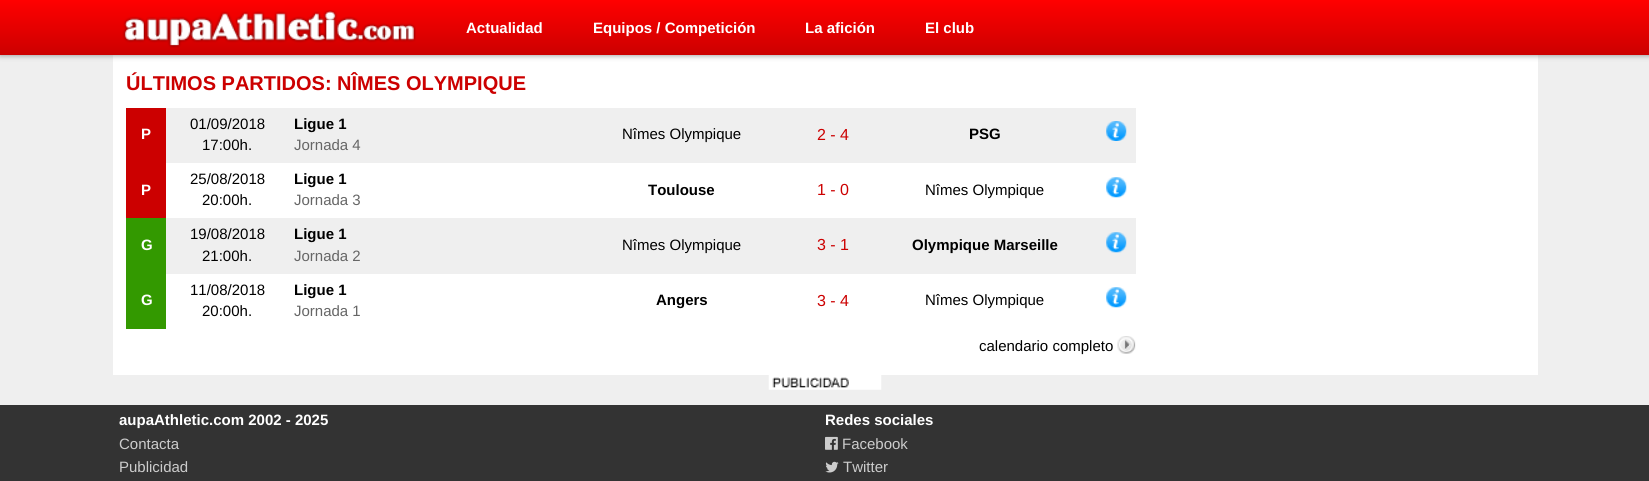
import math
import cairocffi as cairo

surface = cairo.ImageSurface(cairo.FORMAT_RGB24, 1649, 481)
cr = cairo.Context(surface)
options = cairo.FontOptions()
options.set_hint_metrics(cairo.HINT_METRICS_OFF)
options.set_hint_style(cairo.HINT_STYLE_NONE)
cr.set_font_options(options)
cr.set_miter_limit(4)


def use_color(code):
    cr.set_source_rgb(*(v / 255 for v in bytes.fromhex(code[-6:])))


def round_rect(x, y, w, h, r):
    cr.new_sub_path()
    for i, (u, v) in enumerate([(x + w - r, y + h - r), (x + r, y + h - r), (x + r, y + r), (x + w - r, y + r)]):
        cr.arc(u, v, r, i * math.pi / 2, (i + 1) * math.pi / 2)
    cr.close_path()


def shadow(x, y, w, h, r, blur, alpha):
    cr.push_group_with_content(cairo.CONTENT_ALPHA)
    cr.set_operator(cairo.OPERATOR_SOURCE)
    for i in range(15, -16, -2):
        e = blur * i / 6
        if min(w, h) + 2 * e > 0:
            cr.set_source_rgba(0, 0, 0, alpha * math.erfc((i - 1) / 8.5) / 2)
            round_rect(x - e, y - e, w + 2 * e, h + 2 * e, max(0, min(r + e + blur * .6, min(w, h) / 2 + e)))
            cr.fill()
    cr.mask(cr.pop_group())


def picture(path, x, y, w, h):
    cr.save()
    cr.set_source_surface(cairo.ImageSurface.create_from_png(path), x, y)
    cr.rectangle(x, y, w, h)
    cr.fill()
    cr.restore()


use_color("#efefef")
cr.paint()
use_color("#ffffff")
cr.rectangle(113, 55, 1425, 320)
cr.fill()
use_color("#888888")
shadow(0, 0, 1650, 55, 0, 3, 1)
gradient = cairo.LinearGradient(825, 0, 825, 55)
gradient.add_color_stop_rgba(0, 1, 0, 0, 1)
gradient.add_color_stop_rgba(1, 0.8, 0, 0, 1)
cr.set_source(gradient)
cr.rectangle(0, 0, 1649, 55)
cr.fill()
picture("img1.png", 122, 10, 294, 38)
cr.select_font_face("Liberation Sans", cairo.FONT_SLANT_NORMAL, cairo.FONT_WEIGHT_BOLD)
cr.set_font_size(15)
use_color("#ffffff")
cr.move_to(466, 33)
cr.show_text("Actualidad")
cr.move_to(593, 33)
cr.show_text("Equipos / Competición")
cr.move_to(805, 33)
cr.show_text("La afición")
cr.move_to(925, 33)
cr.show_text("El club")
cr.set_font_size(20)
use_color("#cc0000")
cr.move_to(126, 90)
cr.show_text("ÚLTIMOS PARTIDOS: NÎMES OLYMPIQUE")
use_color("#efefef")
cr.rectangle(166, 108, 970, 55)
cr.fill()
use_color("#cc0000")
cr.rectangle(126, 108, 40, 110)
cr.fill()
cr.set_font_size(15)
use_color("#ffffff")
cr.move_to(141, 139)
cr.show_text("P")
cr.select_font_face("Liberation Sans")
use_color("#000000")
cr.move_to(190, 129)
cr.show_text("01/09/2018")
cr.move_to(202, 150)
cr.show_text("17:00h.")
cr.select_font_face("Liberation Sans", cairo.FONT_SLANT_NORMAL, cairo.FONT_WEIGHT_BOLD)
cr.move_to(294, 129)
cr.show_text("Ligue 1")
cr.select_font_face("Liberation Sans")
use_color("#666666")
cr.move_to(294, 150)
cr.show_text("Jornada 4")
use_color("#000000")
cr.move_to(622, 139)
cr.show_text("Nîmes Olympique")
cr.set_font_size(16)
use_color("#cc0000")
cr.move_to(817, 140)
cr.show_text("2 - 4")
cr.select_font_face("Liberation Sans", cairo.FONT_SLANT_NORMAL, cairo.FONT_WEIGHT_BOLD)
cr.set_font_size(15)
use_color("#000000")
cr.move_to(969, 139)
cr.show_text("PSG")
picture("img2.png", 1106, 121, 21, 20)
use_color("#ffffff")
cr.move_to(141, 195)
cr.show_text("P")
cr.select_font_face("Liberation Sans")
use_color("#000000")
cr.move_to(190, 184)
cr.show_text("25/08/2018")
cr.move_to(202, 205)
cr.show_text("20:00h.")
cr.select_font_face("Liberation Sans", cairo.FONT_SLANT_NORMAL, cairo.FONT_WEIGHT_BOLD)
cr.move_to(294, 184)
cr.show_text("Ligue 1")
cr.select_font_face("Liberation Sans")
use_color("#666666")
cr.move_to(294, 205)
cr.show_text("Jornada 3")
cr.select_font_face("Liberation Sans", cairo.FONT_SLANT_NORMAL, cairo.FONT_WEIGHT_BOLD)
use_color("#000000")
cr.move_to(648, 195)
cr.show_text("Toulouse")
cr.select_font_face("Liberation Sans")
cr.set_font_size(16)
use_color("#cc0000")
cr.move_to(817, 195)
cr.show_text("1 - 0")
cr.set_font_size(15)
use_color("#000000")
cr.move_to(925, 195)
cr.show_text("Nîmes Olympique")
picture("img3.png", 1106, 177, 21, 21)
use_color("#efefef")
cr.rectangle(166, 218, 970, 56)
cr.fill()
use_color("#339900")
cr.rectangle(126, 218, 40, 111)
cr.fill()
cr.select_font_face("Liberation Sans", cairo.FONT_SLANT_NORMAL, cairo.FONT_WEIGHT_BOLD)
use_color("#ffffff")
cr.move_to(141, 250)
cr.show_text("G")
cr.select_font_face("Liberation Sans")
use_color("#000000")
cr.move_to(190, 239)
cr.show_text("19/08/2018")
cr.move_to(202, 261)
cr.show_text("21:00h.")
cr.select_font_face("Liberation Sans", cairo.FONT_SLANT_NORMAL, cairo.FONT_WEIGHT_BOLD)
cr.move_to(294, 239)
cr.show_text("Ligue 1")
cr.select_font_face("Liberation Sans")
use_color("#666666")
cr.move_to(294, 261)
cr.show_text("Jornada 2")
use_color("#000000")
cr.move_to(622, 250)
cr.show_text("Nîmes Olympique")
cr.set_font_size(16)
use_color("#cc0000")
cr.move_to(817, 250)
cr.show_text("3 - 1")
cr.select_font_face("Liberation Sans", cairo.FONT_SLANT_NORMAL, cairo.FONT_WEIGHT_BOLD)
cr.set_font_size(15)
use_color("#000000")
cr.move_to(912, 250)
cr.show_text("Olympique Marseille")
picture("img4.png", 1106, 232, 21, 21)
use_color("#ffffff")
cr.move_to(141, 305)
cr.show_text("G")
cr.select_font_face("Liberation Sans")
use_color("#000000")
cr.move_to(190, 295)
cr.show_text("11/08/2018")
cr.move_to(202, 316)
cr.show_text("20:00h.")
cr.select_font_face("Liberation Sans", cairo.FONT_SLANT_NORMAL, cairo.FONT_WEIGHT_BOLD)
cr.move_to(294, 295)
cr.show_text("Ligue 1")
cr.select_font_face("Liberation Sans")
use_color("#666666")
cr.move_to(294, 316)
cr.show_text("Jornada 1")
cr.select_font_face("Liberation Sans", cairo.FONT_SLANT_NORMAL, cairo.FONT_WEIGHT_BOLD)
use_color("#000000")
cr.move_to(656, 305)
cr.show_text("Angers")
cr.select_font_face("Liberation Sans")
cr.set_font_size(16)
use_color("#cc0000")
cr.move_to(817, 306)
cr.show_text("3 - 4")
cr.set_font_size(15)
use_color("#000000")
cr.move_to(925, 305)
cr.show_text("Nîmes Olympique")
picture("img3.png", 1106, 287, 21, 21)
picture("img5.png", 1117, 336, 19, 18)
cr.move_to(979, 351)
cr.show_text("calendario completo")
picture("img6.png", 768, 375, 114, 15)
use_color("#333333")
cr.rectangle(0, 405, 1649, 76)
cr.fill()
cr.select_font_face("Liberation Sans", cairo.FONT_SLANT_NORMAL, cairo.FONT_WEIGHT_BOLD)
use_color("#ffffff")
cr.move_to(119, 425)
cr.show_text("aupaAthletic.com 2002 - 2025")
cr.select_font_face("Liberation Sans")
use_color("#cccccc")
cr.move_to(119, 449)
cr.show_text("Contacta")
cr.move_to(119, 472)
cr.show_text("Publicidad")
cr.select_font_face("Liberation Sans", cairo.FONT_SLANT_NORMAL, cairo.FONT_WEIGHT_BOLD)
use_color("#ffffff")
cr.move_to(825, 425)
cr.show_text("Redes sociales")
picture("img7.png", 825, 436, 13, 14)
cr.select_font_face("Liberation Sans")
use_color("#cccccc")
cr.move_to(842, 449)
cr.show_text("Facebook")
picture("img8.png", 825, 461, 14, 12)
cr.move_to(843, 472)
cr.show_text("Twitter")
surface.write_to_png("result.png")
